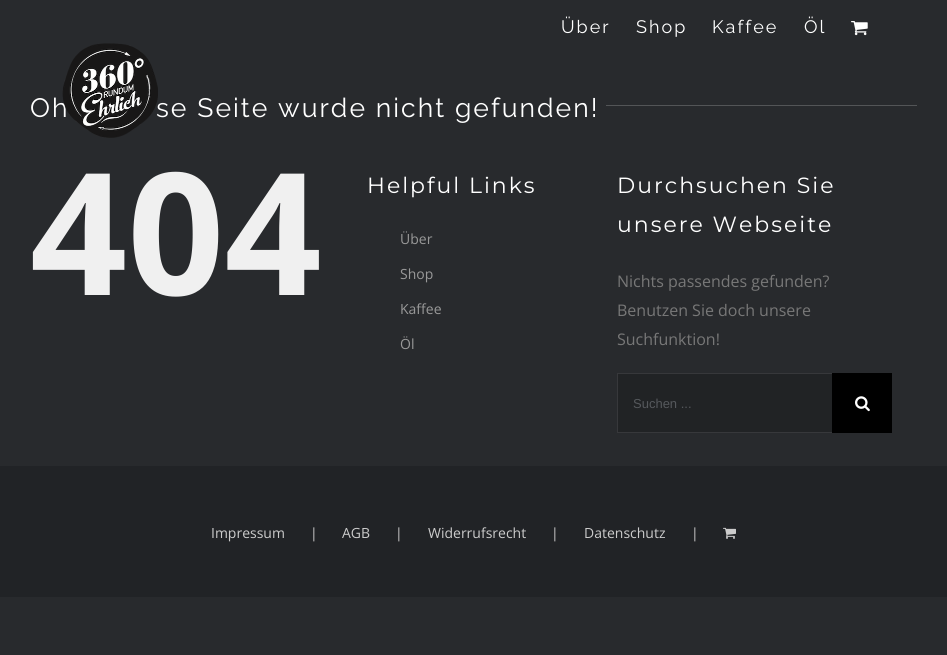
import math
import cairocffi as cairo

surface = cairo.ImageSurface(cairo.FORMAT_RGB24, 947, 655)
cr = cairo.Context(surface)
options = cairo.FontOptions()
options.set_hint_metrics(cairo.HINT_METRICS_OFF)
options.set_hint_style(cairo.HINT_STYLE_NONE)
cr.set_font_options(options)
cr.set_miter_limit(4)


def use_color(code):
    cr.set_source_rgb(*(v / 255 for v in bytes.fromhex(code[-6:])))


def spaced_text(x, y, s, letter, word):
    cr.move_to(x, y)
    for ch in s:
        cr.show_text(ch)
        cr.rel_move_to(letter + word * (ch == ' '), 0)


def picture(path, x, y, w, h):
    cr.save()
    cr.set_source_surface(cairo.ImageSurface.create_from_png(path), x, y)
    cr.rectangle(x, y, w, h)
    cr.fill()
    cr.restore()


use_color("#282a2d")
cr.paint()
cr.select_font_face("Raleway Thin")
cr.set_font_size(18)
use_color("#ffffff")
spaced_text(561, 33, "Über", 2, 0)
spaced_text(636, 33, "Shop", 2, 0)
spaced_text(712, 33, "Kaffee", 2, 0)
spaced_text(804, 33, "Öl", 2, 0)
picture("img1.png", 851, 21, 17, 15)
cr.set_font_size(26.6)
spaced_text(30, 117, "Oh", 2, 0)
spaced_text(156, 117, "se Seite wurde nicht gefunden!", 2, 0)
picture("img2.png", 62, 43, 96, 95)
use_color("#535557")
cr.rectangle(606, 105, 311, 1)
cr.fill()
cr.select_font_face("Open Sans", cairo.FONT_SLANT_NORMAL, cairo.FONT_WEIGHT_BOLD)
cr.set_font_size(170)
use_color("#f0f0f0")
cr.move_to(30, 295)
cr.show_text("404")
cr.select_font_face("Montserrat Thin")
cr.set_font_size(22)
use_color("#ffffff")
spaced_text(367, 193, "Helpful Links", 2, 0)
cr.select_font_face("Open Sans")
cr.set_font_size(14)
use_color("#999999")
cr.move_to(400, 244)
cr.show_text("Über")
cr.move_to(400, 279)
cr.show_text("Shop")
cr.move_to(400, 314)
cr.show_text("Kaffee")
cr.move_to(400, 349)
cr.show_text("Öl")
cr.select_font_face("Montserrat Thin")
cr.set_font_size(22)
use_color("#ffffff")
spaced_text(617, 193, "Durchsuchen Sie", 2, 0)
spaced_text(617, 232, "unsere Webseite", 2, 0)
cr.select_font_face("Open Sans")
cr.set_font_size(16)
use_color("#777777")
cr.move_to(617, 287)
cr.show_text("Nichts passendes gefunden?")
cr.move_to(617, 316)
cr.show_text("Benutzen Sie doch unsere")
cr.move_to(617, 345)
cr.show_text("Suchfunktion!")
use_color("#212325")
cr.rectangle(618, 374, 214, 58)
cr.fill()
use_color("#37383b")
cr.rectangle(617, 373, 215, 1)
cr.fill()
cr.rectangle(617, 432, 215, 1)
cr.fill()
cr.rectangle(617, 373, 1, 60)
cr.fill()
cr.select_font_face("Liberation Sans")
cr.set_font_size(13)
use_color("#55585c")
cr.move_to(633, 408)
cr.show_text("Suchen ...")
use_color("#000000")
cr.rectangle(832, 373, 60, 60)
cr.fill()
picture("img3.png", 855, 396, 15, 16)
use_color("#212326")
cr.rectangle(0, 466, 947, 131)
cr.fill()
cr.select_font_face("Open Sans")
cr.set_font_size(14)
use_color("#cccccc")
cr.move_to(211, 538)
cr.show_text("Impressum")
cr.move_to(310, 538)
cr.show_text("|")
cr.move_to(342, 538)
cr.show_text("AGB")
cr.move_to(395, 538)
cr.show_text("|")
cr.move_to(428, 538)
cr.show_text("Widerrufsrecht")
cr.move_to(551, 538)
cr.show_text("|")
cr.move_to(584, 538)
cr.show_text("Datenschutz")
cr.move_to(691, 538)
cr.show_text("|")
picture("img4.png", 723, 527, 13, 12)
surface.write_to_png("result.png")
